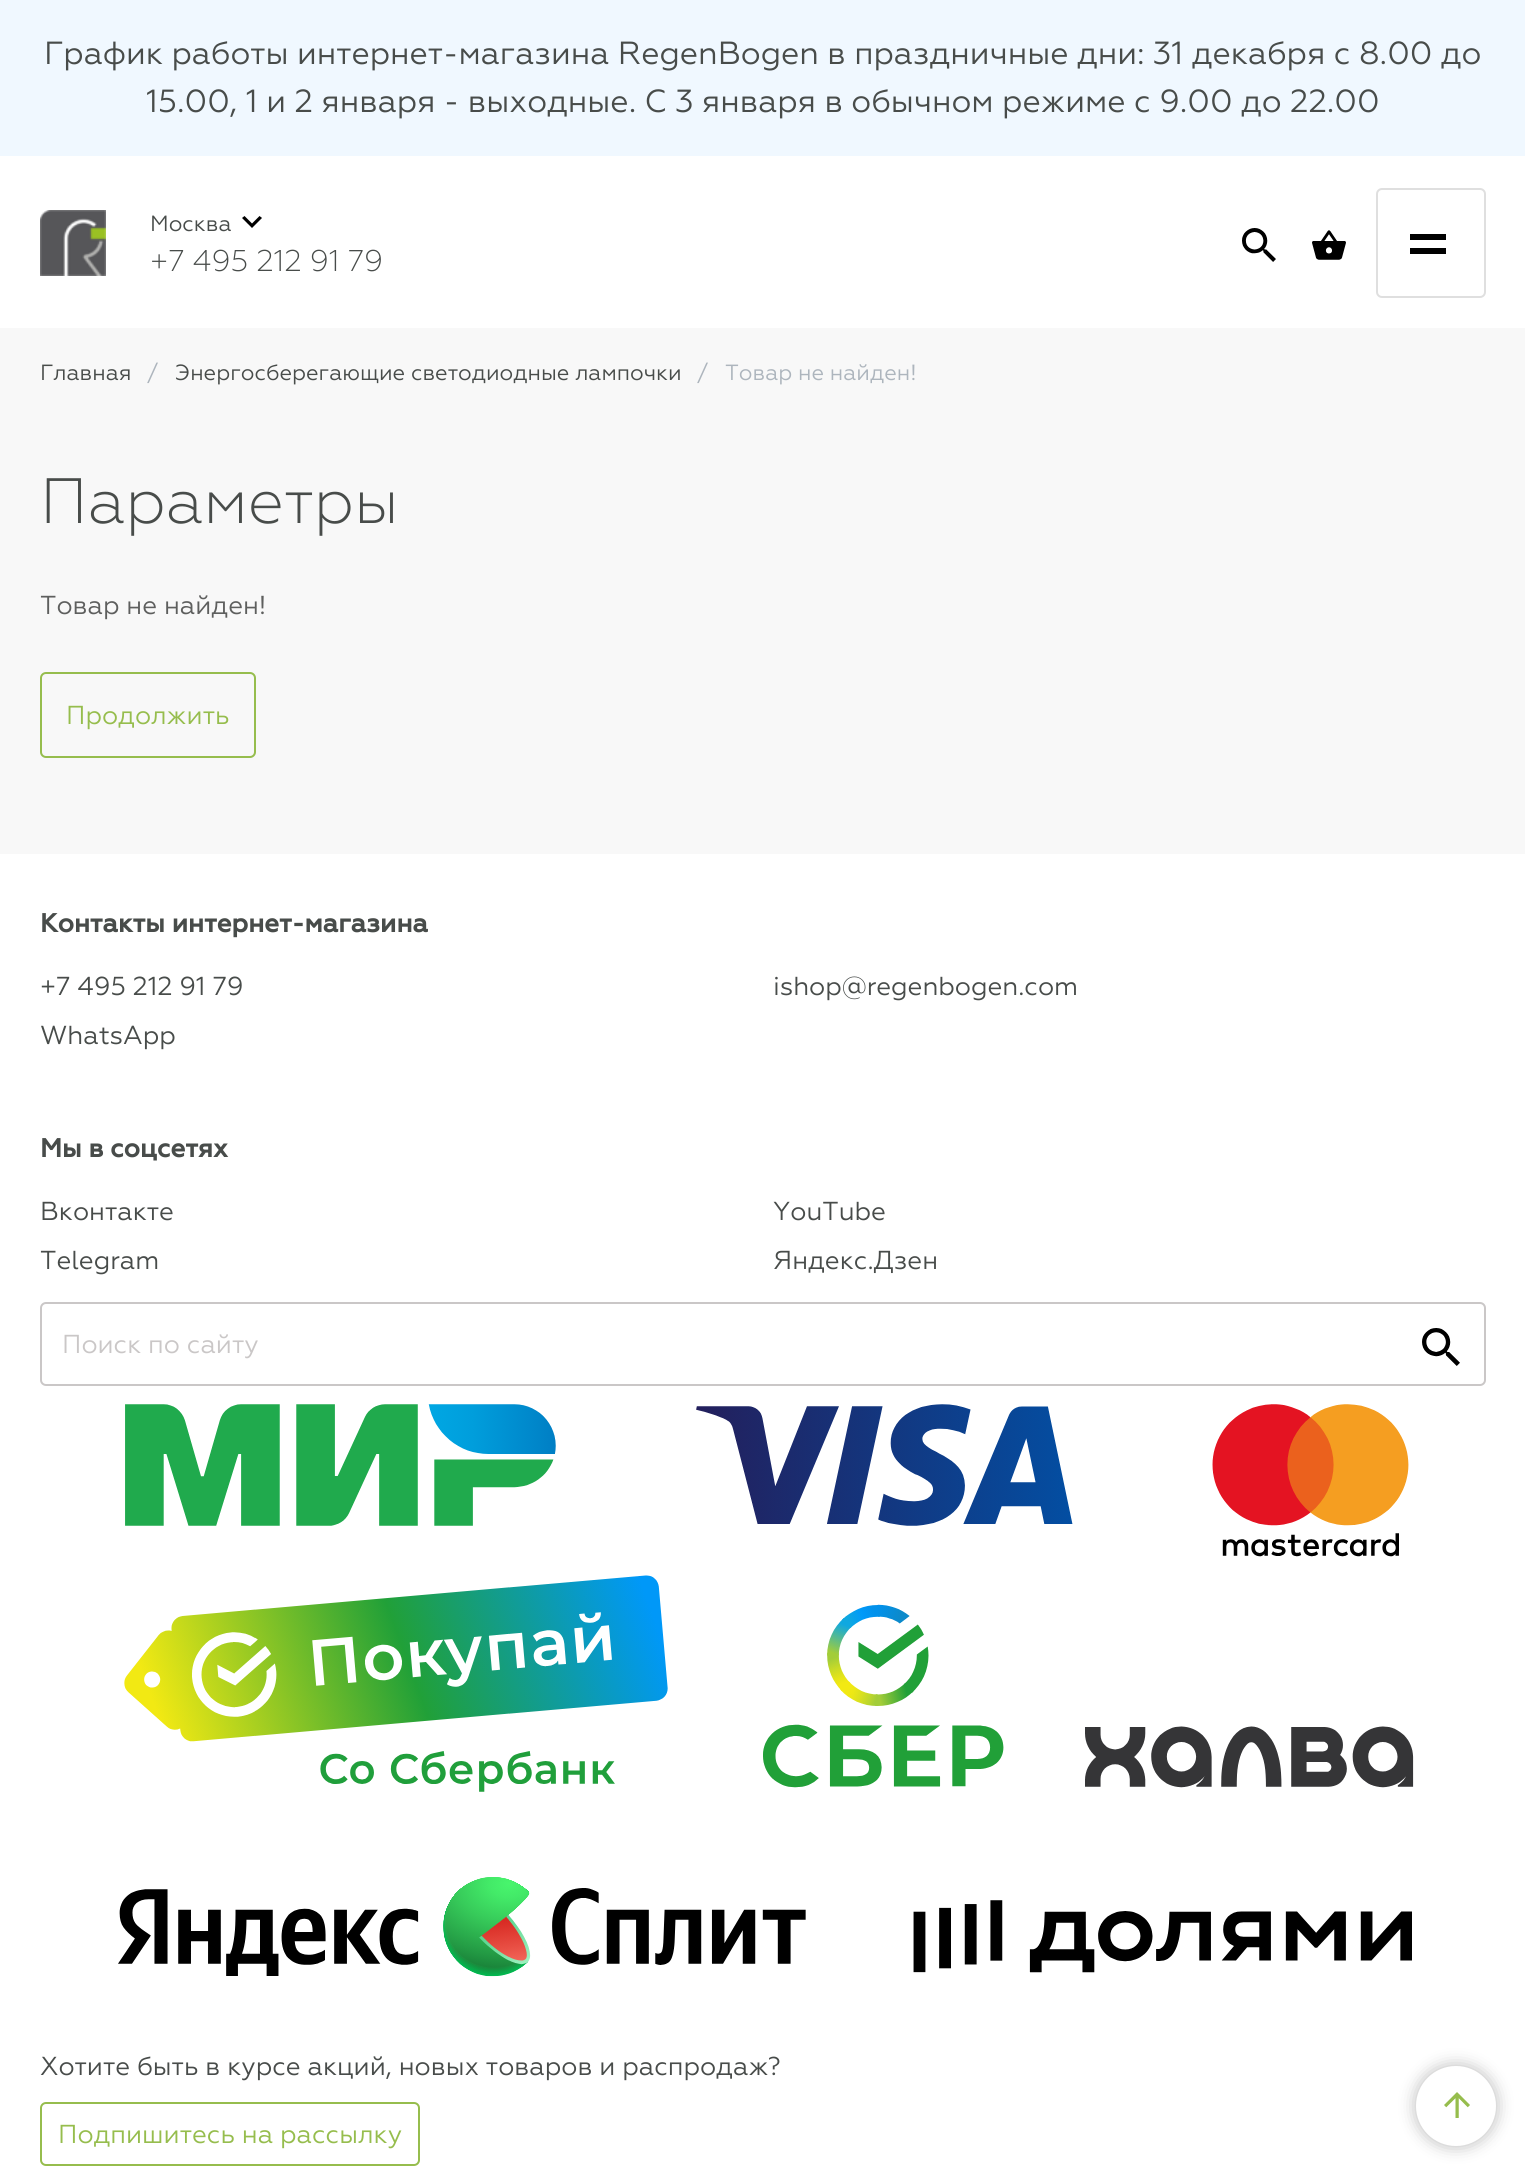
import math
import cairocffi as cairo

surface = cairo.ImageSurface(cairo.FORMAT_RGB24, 1525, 2176)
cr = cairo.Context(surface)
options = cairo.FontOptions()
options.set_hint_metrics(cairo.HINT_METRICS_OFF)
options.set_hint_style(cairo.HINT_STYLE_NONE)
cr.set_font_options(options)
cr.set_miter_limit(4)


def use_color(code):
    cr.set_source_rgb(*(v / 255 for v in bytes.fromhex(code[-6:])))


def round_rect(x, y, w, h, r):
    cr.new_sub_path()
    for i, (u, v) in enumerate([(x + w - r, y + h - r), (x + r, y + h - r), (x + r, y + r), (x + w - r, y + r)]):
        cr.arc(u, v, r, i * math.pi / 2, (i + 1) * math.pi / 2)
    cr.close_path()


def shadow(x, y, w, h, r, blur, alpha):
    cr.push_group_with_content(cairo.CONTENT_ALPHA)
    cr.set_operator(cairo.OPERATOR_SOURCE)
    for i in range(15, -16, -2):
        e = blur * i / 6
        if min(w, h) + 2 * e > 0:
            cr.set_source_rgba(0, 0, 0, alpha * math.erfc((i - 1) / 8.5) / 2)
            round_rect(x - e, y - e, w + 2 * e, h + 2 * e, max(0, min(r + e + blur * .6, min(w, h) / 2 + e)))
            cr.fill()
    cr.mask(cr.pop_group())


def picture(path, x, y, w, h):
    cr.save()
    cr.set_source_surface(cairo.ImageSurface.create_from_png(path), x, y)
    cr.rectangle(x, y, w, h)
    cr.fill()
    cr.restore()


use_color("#f8f8f8")
cr.paint()
use_color("#ffffff")
cr.rectangle(0, 156, 1525, 172)
cr.fill()
use_color("#f0f8ff")
cr.rectangle(0, 0, 1525, 156)
cr.fill()
cr.select_font_face("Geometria")
cr.set_font_size(32)
use_color("#484c4a")
cr.move_to(44, 64)
cr.show_text("График работы интернет-магазина RegenBogen в праздничные дни: 31 декабря с 8.00 до")
cr.move_to(146, 112)
cr.show_text("15.00, 1 и 2 января - выходные. С 3 января в обычном режиме с 9.00 до 22.00")
picture("img1.png", 40, 210, 66, 66)
cr.set_font_size(22)
cr.move_to(150, 231)
cr.show_text("Москва")
use_color("#000000")
cr.new_path()
cr.move_to(259.5, 216)
cr.line_to(252, 223.5)
cr.line_to(244.5, 216)
cr.line_to(242, 218)
cr.line_to(252, 228)
cr.line_to(262, 218)
cr.close_path()
cr.fill()
cr.select_font_face("Geometria Light")
cr.set_font_size(30)
use_color("#484c4a")
cr.move_to(150, 271)
cr.show_text("+7 495 212 91 79")
picture("img2.png", 1242, 228, 34, 34)
picture("img3.png", 1312, 230, 34, 30)
round_rect(1377, 189, 108, 108, 5)
use_color("#dfdfdf")
cr.stroke()
use_color("#000000")
cr.rectangle(1410, 234, 36, 6)
cr.fill()
cr.rectangle(1410, 248, 36, 6)
cr.fill()
cr.select_font_face("Geometria")
cr.set_font_size(22)
use_color("#484c4a")
cr.move_to(40, 380)
cr.show_text("Главная")
use_color("#adb5bd")
cr.move_to(147, 380)
cr.show_text("/")
use_color("#484c4a")
cr.move_to(175, 380)
cr.show_text("Энергосберегающие светодиодные лампочки")
use_color("#adb5bd")
cr.move_to(697, 380)
cr.show_text("/")
cr.move_to(725, 380)
cr.show_text("Товар не найден!")
cr.select_font_face("Geometria Light")
cr.set_font_size(64)
use_color("#484c4a")
cr.move_to(40, 523)
cr.show_text("Параметры")
cr.select_font_face("Geometria")
cr.set_font_size(26)
use_color("#5e5f5e")
cr.move_to(40, 614)
cr.show_text("Товар не найден!")
round_rect(41, 673, 214, 84, 5)
use_color("#96bd4d")
cr.stroke()
cr.move_to(66, 724)
cr.show_text("Продолжить")
use_color("#ffffff")
cr.rectangle(0, 854, 1525, 1322)
cr.fill()
cr.select_font_face("Geometria", cairo.FONT_SLANT_NORMAL, cairo.FONT_WEIGHT_BOLD)
use_color("#484c4a")
cr.move_to(40, 932)
cr.show_text("Контакты интернет-магазина")
cr.select_font_face("Geometria")
cr.move_to(40, 995)
cr.show_text("+7 495 212 91 79")
cr.move_to(773, 995)
cr.show_text("ishop@regenbogen.com")
cr.move_to(40, 1044)
cr.show_text("WhatsApp")
cr.select_font_face("Geometria", cairo.FONT_SLANT_NORMAL, cairo.FONT_WEIGHT_BOLD)
cr.move_to(40, 1157)
cr.show_text("Мы в соцсетях")
cr.select_font_face("Geometria")
cr.move_to(40, 1220)
cr.show_text("Вконтакте")
cr.move_to(773, 1220)
cr.show_text("YouTube")
cr.move_to(40, 1269)
cr.show_text("Telegram")
cr.move_to(773, 1269)
cr.show_text("Яндекс.Дзен")
round_rect(41, 1303, 1444, 82, 5)
use_color("#cac7c7")
cr.stroke()
cr.move_to(62, 1353)
cr.show_text("Поиск по сайту")
picture("img4.png", 1422, 1328, 38, 38)
picture("img5.png", 118, 1404, 1296, 573)
use_color("#484c4a")
cr.move_to(40, 2075)
cr.show_text("Хотите быть в курсе акций, новых товаров и распродаж?")
round_rect(41, 2103, 378, 62, 5)
use_color("#96bd4d")
cr.stroke()
cr.move_to(58, 2143)
cr.show_text("Подпишитесь на рассылку")
use_color("#000000")
shadow(1416, 2066, 80, 80, 40, 8.5, 0.28)
use_color("#ffffff")
cr.arc(1456, 2106, 39, 0, 2 * math.pi)
cr.fill_preserve()
cr.stroke()
picture("img6.png", 1444, 2092, 26, 26)
surface.write_to_png("result.png")
